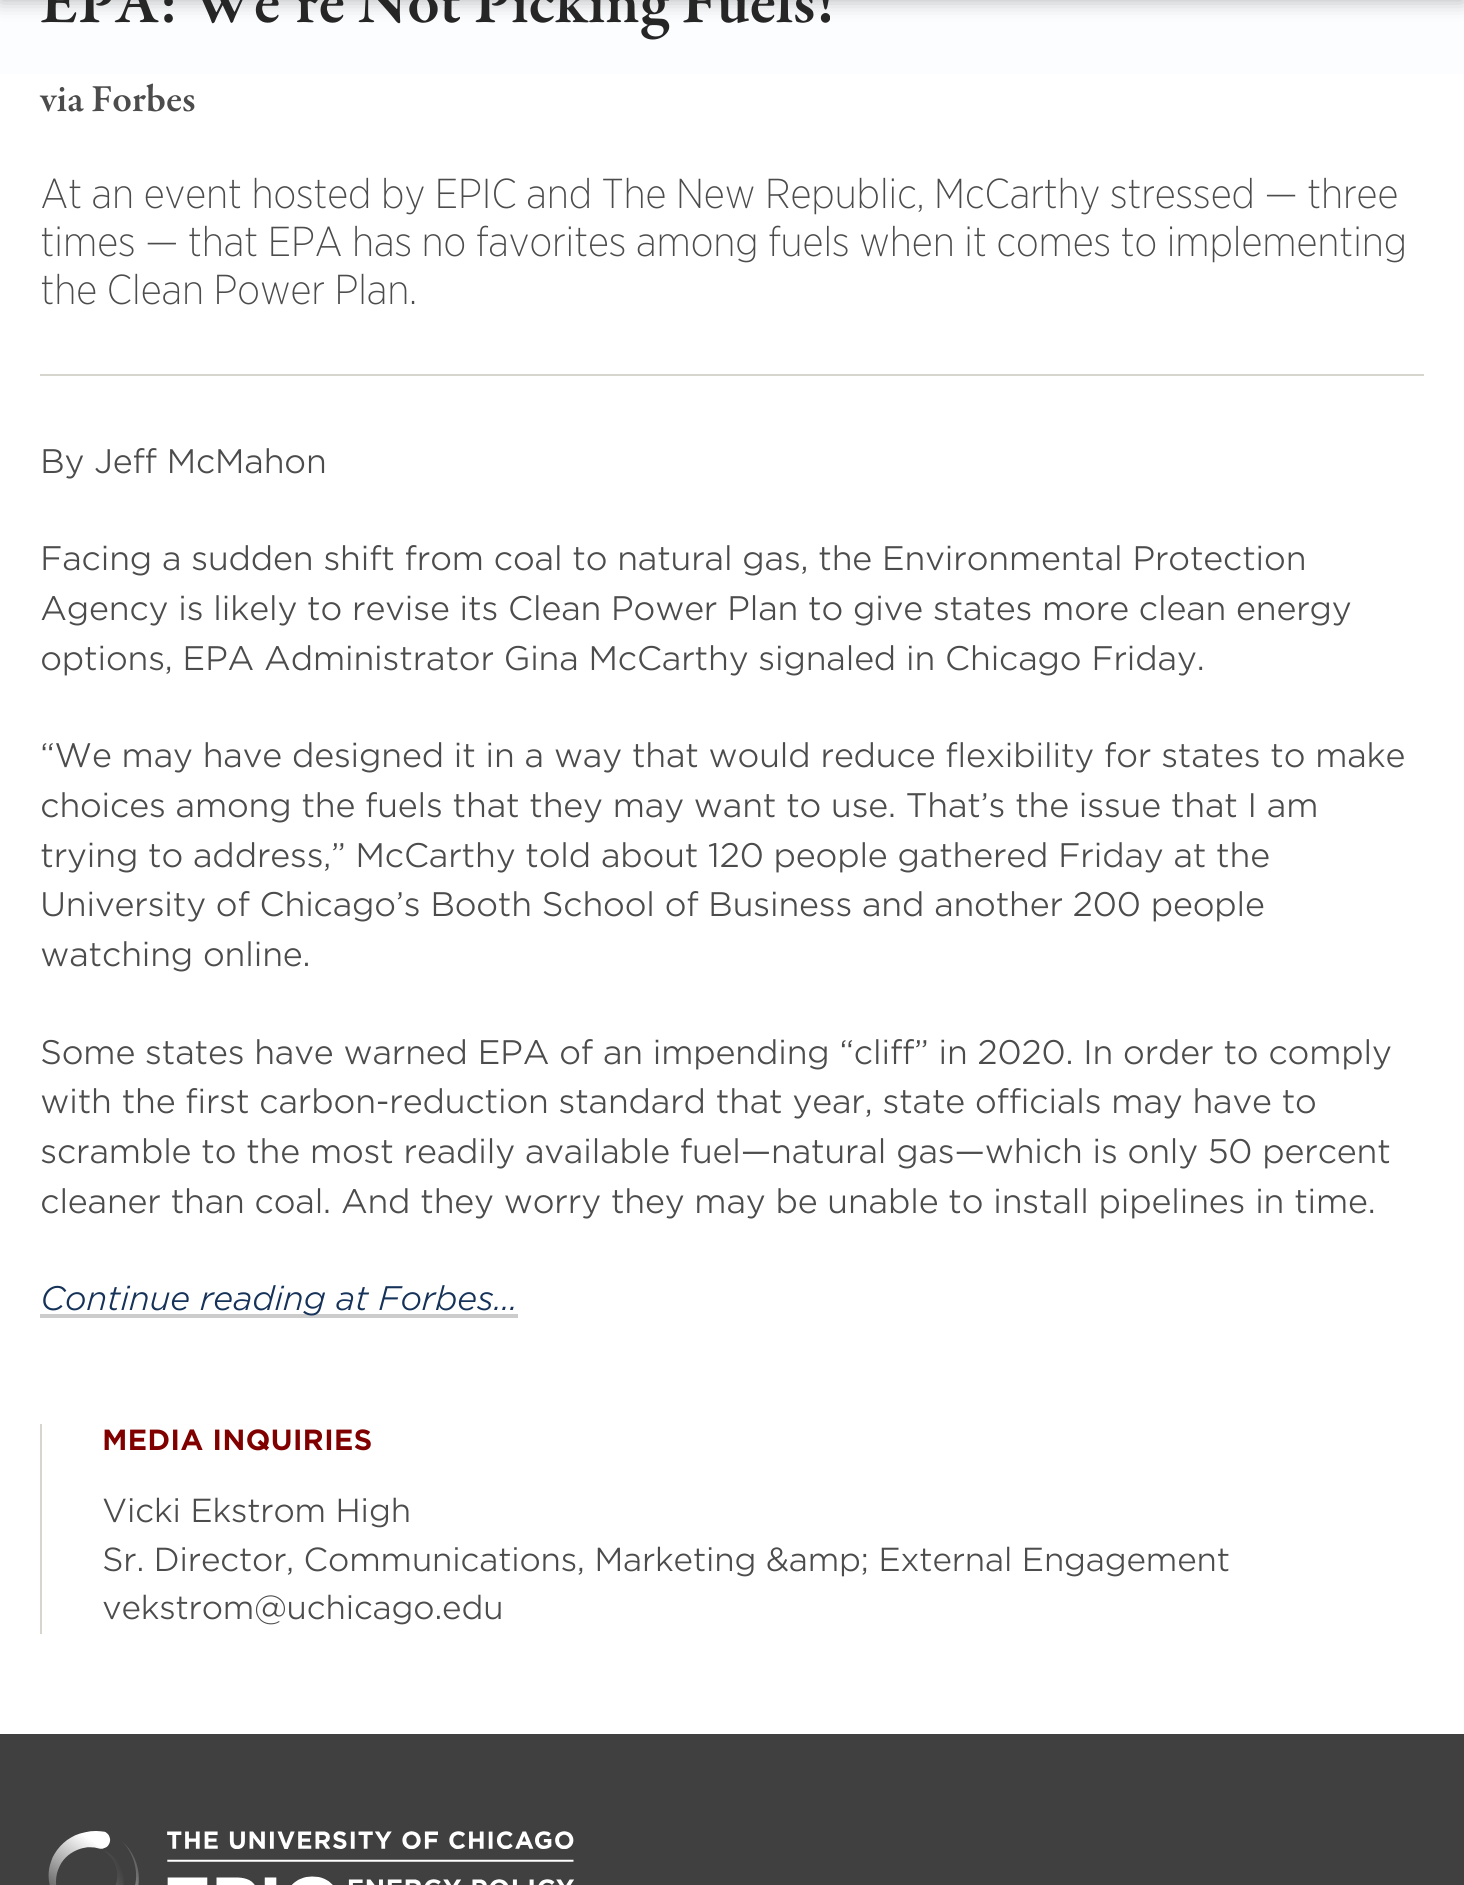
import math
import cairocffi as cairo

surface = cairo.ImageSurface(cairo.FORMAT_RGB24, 1464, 1885)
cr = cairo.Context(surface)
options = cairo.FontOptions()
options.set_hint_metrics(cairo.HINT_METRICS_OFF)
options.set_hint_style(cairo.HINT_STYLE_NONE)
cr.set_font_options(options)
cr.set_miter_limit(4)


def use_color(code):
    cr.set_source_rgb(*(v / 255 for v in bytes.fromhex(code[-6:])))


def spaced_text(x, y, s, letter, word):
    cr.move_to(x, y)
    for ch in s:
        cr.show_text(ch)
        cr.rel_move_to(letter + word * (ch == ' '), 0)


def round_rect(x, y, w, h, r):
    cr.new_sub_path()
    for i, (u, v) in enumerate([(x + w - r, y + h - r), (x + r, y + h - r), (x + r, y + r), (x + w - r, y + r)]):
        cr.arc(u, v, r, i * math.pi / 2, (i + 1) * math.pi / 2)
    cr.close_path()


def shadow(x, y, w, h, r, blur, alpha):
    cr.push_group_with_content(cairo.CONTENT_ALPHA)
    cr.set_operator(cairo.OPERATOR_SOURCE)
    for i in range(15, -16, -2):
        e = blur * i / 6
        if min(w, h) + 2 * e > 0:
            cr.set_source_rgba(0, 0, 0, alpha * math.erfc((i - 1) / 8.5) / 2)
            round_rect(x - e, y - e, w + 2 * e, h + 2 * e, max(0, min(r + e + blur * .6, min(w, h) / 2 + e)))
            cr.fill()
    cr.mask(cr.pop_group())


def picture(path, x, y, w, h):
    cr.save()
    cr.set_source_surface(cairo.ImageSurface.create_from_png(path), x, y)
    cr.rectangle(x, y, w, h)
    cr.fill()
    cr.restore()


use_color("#ffffff")
cr.paint()
gradient = cairo.LinearGradient(732, -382, 732, 250)
gradient.add_color_stop_rgba(0, 0.965, 0.976, 1, 1)
gradient.add_color_stop_rgba(1, 1, 1, 1, 1)
cr.set_source(gradient)
cr.rectangle(0, 0, 1464, 74)
cr.fill()
use_color("#000000")
shadow(0, -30, 1464, 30, 0, 10, 0.3)
cr.select_font_face("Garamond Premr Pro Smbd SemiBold")
cr.set_font_size(64.4)
use_color("#262626")
cr.move_to(40, 22)
cr.show_text("EPA: We’re Not Picking Fuels!")
cr.set_font_size(39)
use_color("#4c4c4c")
cr.move_to(40, 111)
cr.show_text("via Forbes")
cr.select_font_face("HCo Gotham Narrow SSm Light")
cr.set_font_size(40.2)
spaced_text(40, 208, "At an event hosted by EPIC and The New Republic, McCarthy stressed — three", -1, 0)
spaced_text(40, 256, "times — that EPA has no favorites among fuels when it comes to implementing", -1, 0)
spaced_text(40, 304, "the Clean Power Plan.", -1, 0)
use_color("#d6d6ce")
cr.rectangle(40, 374, 1384, 2)
cr.fill()
cr.select_font_face("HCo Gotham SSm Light")
cr.set_font_size(32.7)
use_color("#4c4c4c")
spaced_text(40, 473, "By Jeff McMahon", -0.6, 0)
spaced_text(40, 570, "Facing a sudden shift from coal to natural gas, the Environmental Protection", -0.6, 0)
spaced_text(40, 620, "Agency is likely to revise its Clean Power Plan to give states more clean energy", -0.6, 0)
spaced_text(40, 670, "options, EPA Administrator Gina McCarthy signaled in Chicago Friday.", -0.6, 0)
spaced_text(40, 767, "“We may have designed it in a way that would reduce flexibility for states to make", -0.6, 0)
spaced_text(40, 817, "choices among the fuels that they may want to use. That’s the issue that I am", -0.6, 0)
spaced_text(40, 867, "trying to address,” McCarthy told about 120 people gathered Friday at the", -0.6, 0)
spaced_text(40, 916, "University of Chicago’s Booth School of Business and another 200 people", -0.6, 0)
spaced_text(40, 966, "watching online.", -0.6, 0)
spaced_text(40, 1064, "Some states have warned EPA of an impending “cliff” in 2020. In order to comply", -0.6, 0)
spaced_text(40, 1113, "with the first carbon-reduction standard that year, state officials may have to", -0.6, 0)
spaced_text(40, 1163, "scramble to the most readily available fuel—natural gas—which is only 50 percent", -0.6, 0)
spaced_text(40, 1213, "cleaner than coal. And they worry they may be unable to install pipelines in time.", -0.6, 0)
use_color("#cccccc")
cr.rectangle(40, 1314, 478, 4)
cr.fill()
cr.select_font_face("HCo Gotham SSm Light", cairo.FONT_SLANT_ITALIC)
use_color("#163259")
spaced_text(40, 1310, "Continue reading at Forbes…", -0.6, 0)
use_color("#d6d6ce")
cr.rectangle(40, 1424, 2, 210)
cr.fill()
cr.select_font_face("HCo Gotham SSm", cairo.FONT_SLANT_NORMAL, cairo.FONT_WEIGHT_BOLD)
cr.set_font_size(28)
use_color("#800000")
cr.move_to(102, 1450)
cr.show_text("MEDIA INQUIRIES")
cr.select_font_face("HCo Gotham SSm Light")
cr.set_font_size(32)
use_color("#4c4c4c")
spaced_text(102, 1522, "Vicki Ekstrom High", -0.6, 0)
spaced_text(102, 1571, "Sr. Director, Communications, Marketing &amp; External Engagement", -0.6, 0)
spaced_text(102, 1619, "vekstrom@uchicago.edu", -0.6, 0)
use_color("#404040")
cr.rectangle(0, 1734, 1464, 151)
cr.fill()
picture("img1.png", 48, 1831, 526, 54)
surface.write_to_png("result.png")
